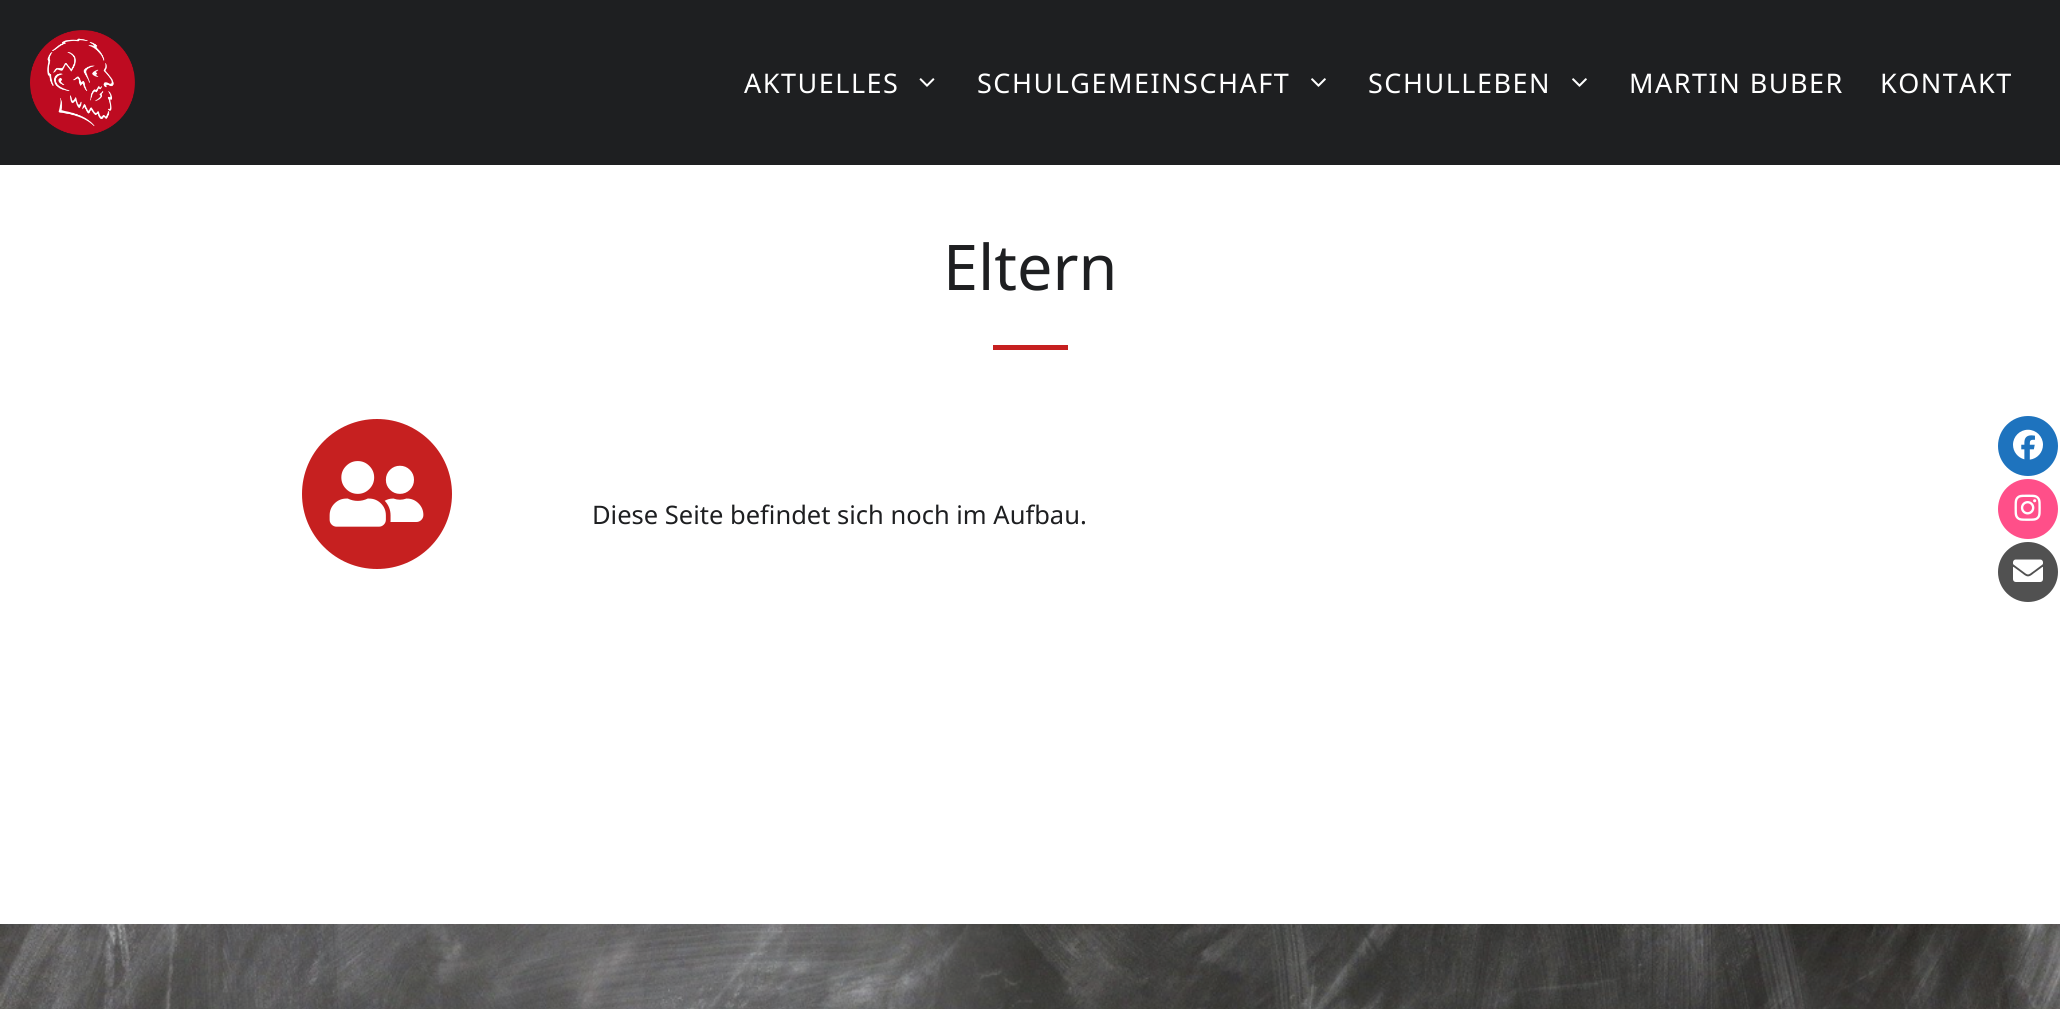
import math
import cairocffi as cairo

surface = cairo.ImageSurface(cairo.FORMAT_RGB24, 2060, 1009)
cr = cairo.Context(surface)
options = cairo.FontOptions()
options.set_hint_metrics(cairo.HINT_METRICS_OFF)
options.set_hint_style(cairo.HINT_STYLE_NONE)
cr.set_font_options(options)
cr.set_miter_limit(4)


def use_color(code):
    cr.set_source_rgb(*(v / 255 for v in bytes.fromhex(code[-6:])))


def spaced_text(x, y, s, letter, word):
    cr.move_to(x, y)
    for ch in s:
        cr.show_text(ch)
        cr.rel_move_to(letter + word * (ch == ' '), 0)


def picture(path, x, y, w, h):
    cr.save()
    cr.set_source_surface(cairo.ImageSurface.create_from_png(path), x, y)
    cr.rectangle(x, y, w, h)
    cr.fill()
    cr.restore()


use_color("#ffffff")
cr.paint()
use_color("#1e1f21")
cr.rectangle(0, 0, 2060, 165)
cr.fill()
picture("img1.png", 30, 30, 105, 105)
cr.select_font_face("Noto Sans")
cr.set_font_size(27)
use_color("#ffffff")
spaced_text(744, 93, "AKTUELLES", 1.5, 0)
picture("img2.png", 919, 78, 16, 9)
spaced_text(977, 93, "SCHULGEMEINSCHAFT", 1.5, 0)
picture("img3.png", 1311, 78, 15, 9)
spaced_text(1368, 93, "SCHULLEBEN", 1.5, 0)
picture("img3.png", 1572, 78, 15, 9)
spaced_text(1629, 93, "MARTIN BUBER", 1.5, 0)
spaced_text(1880, 93, "KONTAKT", 1.5, 0)
cr.set_font_size(63)
use_color("#1e1f21")
cr.move_to(943, 290)
cr.show_text("Eltern")
use_color("#c62020")
cr.rectangle(993, 345, 75, 5)
cr.fill()
cr.arc(377, 494, 75, 0, 2 * math.pi)
cr.fill()
picture("img4.png", 329, 461, 95, 66)
cr.set_font_size(25.5)
use_color("#1e1f21")
cr.move_to(592, 524)
cr.show_text("Diese Seite befindet sich noch im Aufbau.")
picture("img5.png", 0, 924, 2060, 85)
use_color("#1e73be")
cr.arc(2028, 446, 30, 0, 2 * math.pi)
cr.fill()
picture("img6.png", 2013, 429, 30, 31)
use_color("#ff4f89")
cr.arc(2028, 509, 30, 0, 2 * math.pi)
cr.fill()
picture("img7.png", 2014, 494, 27, 27)
use_color("#515151")
cr.arc(2028, 572, 30, 0, 2 * math.pi)
cr.fill()
picture("img8.png", 2013, 559, 30, 23)
surface.write_to_png("result.png")
